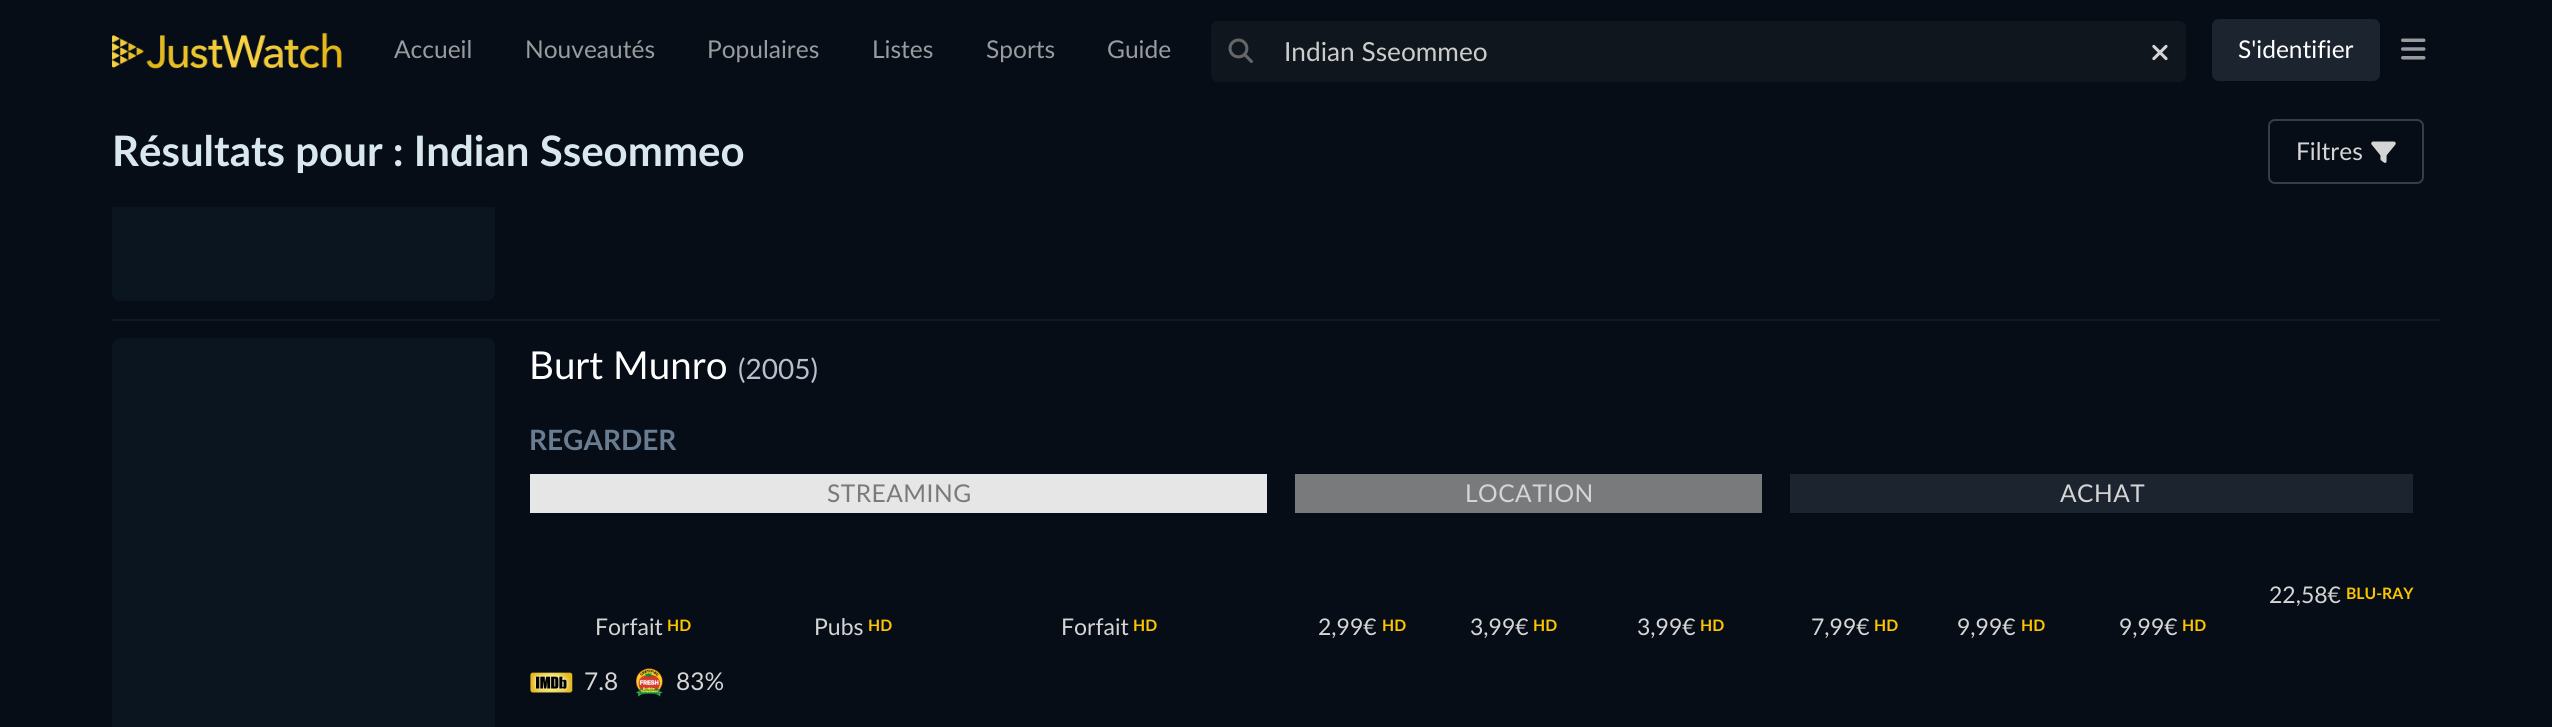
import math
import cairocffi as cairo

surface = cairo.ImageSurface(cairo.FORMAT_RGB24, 2552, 727)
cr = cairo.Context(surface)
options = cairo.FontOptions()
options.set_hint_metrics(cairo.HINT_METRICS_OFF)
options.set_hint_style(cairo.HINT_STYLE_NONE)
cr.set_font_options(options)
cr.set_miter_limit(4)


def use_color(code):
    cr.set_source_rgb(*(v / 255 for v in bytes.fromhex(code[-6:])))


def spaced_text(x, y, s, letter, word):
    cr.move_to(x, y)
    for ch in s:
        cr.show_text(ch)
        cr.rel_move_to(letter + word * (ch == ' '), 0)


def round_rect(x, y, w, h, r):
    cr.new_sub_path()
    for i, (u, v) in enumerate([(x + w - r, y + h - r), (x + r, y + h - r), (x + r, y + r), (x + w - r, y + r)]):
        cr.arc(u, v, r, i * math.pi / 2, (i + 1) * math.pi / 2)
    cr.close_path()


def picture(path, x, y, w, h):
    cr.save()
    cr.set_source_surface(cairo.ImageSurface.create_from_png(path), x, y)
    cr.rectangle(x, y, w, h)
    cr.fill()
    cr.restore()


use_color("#060d17")
cr.paint()
use_color("#0a151f")
round_rect(112, -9, 383, 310, 9)
cr.fill()
use_color("#060d17")
cr.rectangle(112, 0, 383, 207)
cr.fill()
picture("img1.png", 112, 32, 230, 37)
cr.select_font_face("Lato")
cr.set_font_size(24.5)
use_color("#999c9f")
cr.move_to(394, 58)
cr.show_text("Accueil")
cr.move_to(525, 58)
cr.show_text("Nouveautés")
cr.move_to(707, 58)
cr.show_text("Populaires")
cr.move_to(872, 58)
cr.show_text("Listes")
cr.move_to(986, 58)
cr.show_text("Sports")
cr.move_to(1107, 58)
cr.show_text("Guide")
use_color("#10161d")
round_rect(1211, 21, 975, 61, 7)
cr.fill()
picture("img2.png", 1228, 38, 25, 25)
cr.set_font_size(26.25)
use_color("#cccccc")
cr.move_to(1284, 61)
cr.show_text("Indian Sseommeo")
picture("img3.png", 2152, 44, 16, 17)
use_color("#1c252f")
round_rect(2212, 19, 168, 62, 7)
cr.fill()
cr.set_font_size(24.5)
use_color("#ffffff")
cr.move_to(2238, 58)
cr.show_text("S'identifier")
picture("img4.png", 2401, 38, 25, 22)
cr.select_font_face("Lato", cairo.FONT_SLANT_NORMAL, cairo.FONT_WEIGHT_BOLD)
cr.set_font_size(42)
use_color("#d9e8ed")
cr.move_to(112, 166)
cr.show_text("Résultats pour : Indian Sseommeo")
round_rect(2269, 120, 154, 63, 6)
use_color("#383d47")
cr.stroke()
cr.select_font_face("Lato")
cr.set_font_size(24.5)
use_color("#d5d5d5")
cr.move_to(2296, 160)
cr.show_text("Filtres")
picture("img5.png", 2371, 141, 25, 22)
use_color("#111924")
cr.rectangle(112, 319, 2329, 2)
cr.fill()
use_color("#0a151f")
round_rect(112, 338, 383, 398, 9)
cr.fill()
cr.set_font_size(38.5)
use_color("#ffffff")
cr.move_to(529, 379)
cr.show_text("Burt Munro")
cr.set_font_size(28)
use_color("#b9bdcc")
cr.move_to(738, 379)
cr.show_text("(2005)")
cr.select_font_face("Lato", cairo.FONT_SLANT_NORMAL, cairo.FONT_WEIGHT_BOLD)
use_color("#6a7c8f")
cr.move_to(529, 450)
cr.show_text("REGARDER")
use_color("#e6e6e6")
cr.rectangle(530, 474, 737, 39)
cr.fill()
cr.select_font_face("Lato")
cr.set_font_size(24.5)
use_color("#797a7b")
spaced_text(827, 502, "STREAMING", 0.5, 0)
cr.set_font_size(23)
use_color("#d5d5d5")
cr.move_to(595, 635)
cr.show_text("Forfait")
cr.select_font_face("Lato", cairo.FONT_SLANT_NORMAL, cairo.FONT_WEIGHT_BOLD)
cr.set_font_size(15.75)
use_color("#fbc500")
cr.move_to(667, 631)
cr.show_text("HD")
cr.select_font_face("Lato")
cr.set_font_size(23)
use_color("#d5d5d5")
cr.move_to(814, 635)
cr.show_text("Pubs")
cr.select_font_face("Lato", cairo.FONT_SLANT_NORMAL, cairo.FONT_WEIGHT_BOLD)
cr.set_font_size(15.75)
use_color("#fbc500")
cr.move_to(868, 631)
cr.show_text("HD")
cr.select_font_face("Lato")
cr.set_font_size(23)
use_color("#d5d5d5")
cr.move_to(1061, 635)
cr.show_text("Forfait")
cr.select_font_face("Lato", cairo.FONT_SLANT_NORMAL, cairo.FONT_WEIGHT_BOLD)
cr.set_font_size(15.75)
use_color("#fbc500")
cr.move_to(1133, 631)
cr.show_text("HD")
use_color("#797a7b")
cr.rectangle(1295, 474, 467, 39)
cr.fill()
cr.select_font_face("Lato")
cr.set_font_size(24.5)
use_color("#d5d5d5")
spaced_text(1465, 502, "LOCATION", 0.5, 0)
cr.set_font_size(23)
cr.move_to(1318, 635)
cr.show_text("2,99€")
cr.select_font_face("Lato", cairo.FONT_SLANT_NORMAL, cairo.FONT_WEIGHT_BOLD)
cr.set_font_size(15.75)
use_color("#fbc500")
cr.move_to(1382, 631)
cr.show_text("HD")
cr.select_font_face("Lato")
cr.set_font_size(23)
use_color("#d5d5d5")
cr.move_to(1470, 635)
cr.show_text("3,99€")
cr.select_font_face("Lato", cairo.FONT_SLANT_NORMAL, cairo.FONT_WEIGHT_BOLD)
cr.set_font_size(15.75)
use_color("#fbc500")
cr.move_to(1533, 631)
cr.show_text("HD")
cr.select_font_face("Lato")
cr.set_font_size(23)
use_color("#d5d5d5")
cr.move_to(1637, 635)
cr.show_text("3,99€")
cr.select_font_face("Lato", cairo.FONT_SLANT_NORMAL, cairo.FONT_WEIGHT_BOLD)
cr.set_font_size(15.75)
use_color("#fbc500")
cr.move_to(1700, 631)
cr.show_text("HD")
use_color("#1c252f")
cr.rectangle(1790, 474, 623, 39)
cr.fill()
cr.select_font_face("Lato")
cr.set_font_size(24.5)
use_color("#d5d5d5")
spaced_text(2060, 502, "ACHAT", 0.5, 0)
cr.set_font_size(23)
cr.move_to(2269, 603)
cr.show_text("22,58€")
cr.select_font_face("Lato", cairo.FONT_SLANT_NORMAL, cairo.FONT_WEIGHT_BOLD)
cr.set_font_size(15.75)
use_color("#fbc500")
cr.move_to(2346, 599)
cr.show_text("BLU-RAY")
cr.select_font_face("Lato")
cr.set_font_size(23)
use_color("#d5d5d5")
cr.move_to(1811, 635)
cr.show_text("7,99€")
cr.select_font_face("Lato", cairo.FONT_SLANT_NORMAL, cairo.FONT_WEIGHT_BOLD)
cr.set_font_size(15.75)
use_color("#fbc500")
cr.move_to(1874, 631)
cr.show_text("HD")
cr.select_font_face("Lato")
cr.set_font_size(23)
use_color("#d5d5d5")
cr.move_to(1957, 635)
cr.show_text("9,99€")
cr.select_font_face("Lato", cairo.FONT_SLANT_NORMAL, cairo.FONT_WEIGHT_BOLD)
cr.set_font_size(15.75)
use_color("#fbc500")
cr.move_to(2021, 631)
cr.show_text("HD")
cr.select_font_face("Lato")
cr.set_font_size(23)
use_color("#d5d5d5")
cr.move_to(2119, 635)
cr.show_text("9,99€")
cr.select_font_face("Lato", cairo.FONT_SLANT_NORMAL, cairo.FONT_WEIGHT_BOLD)
cr.set_font_size(15.75)
use_color("#fbc500")
cr.move_to(2182, 631)
cr.show_text("HD")
picture("img6.png", 530, 672, 43, 21)
cr.select_font_face("Lato")
cr.set_font_size(24.5)
use_color("#d5d5d5")
cr.move_to(584, 690)
cr.show_text("7.8")
picture("img7.png", 636, 668, 27, 29)
cr.move_to(676, 690)
cr.show_text("83%")
surface.write_to_png("result.png")
